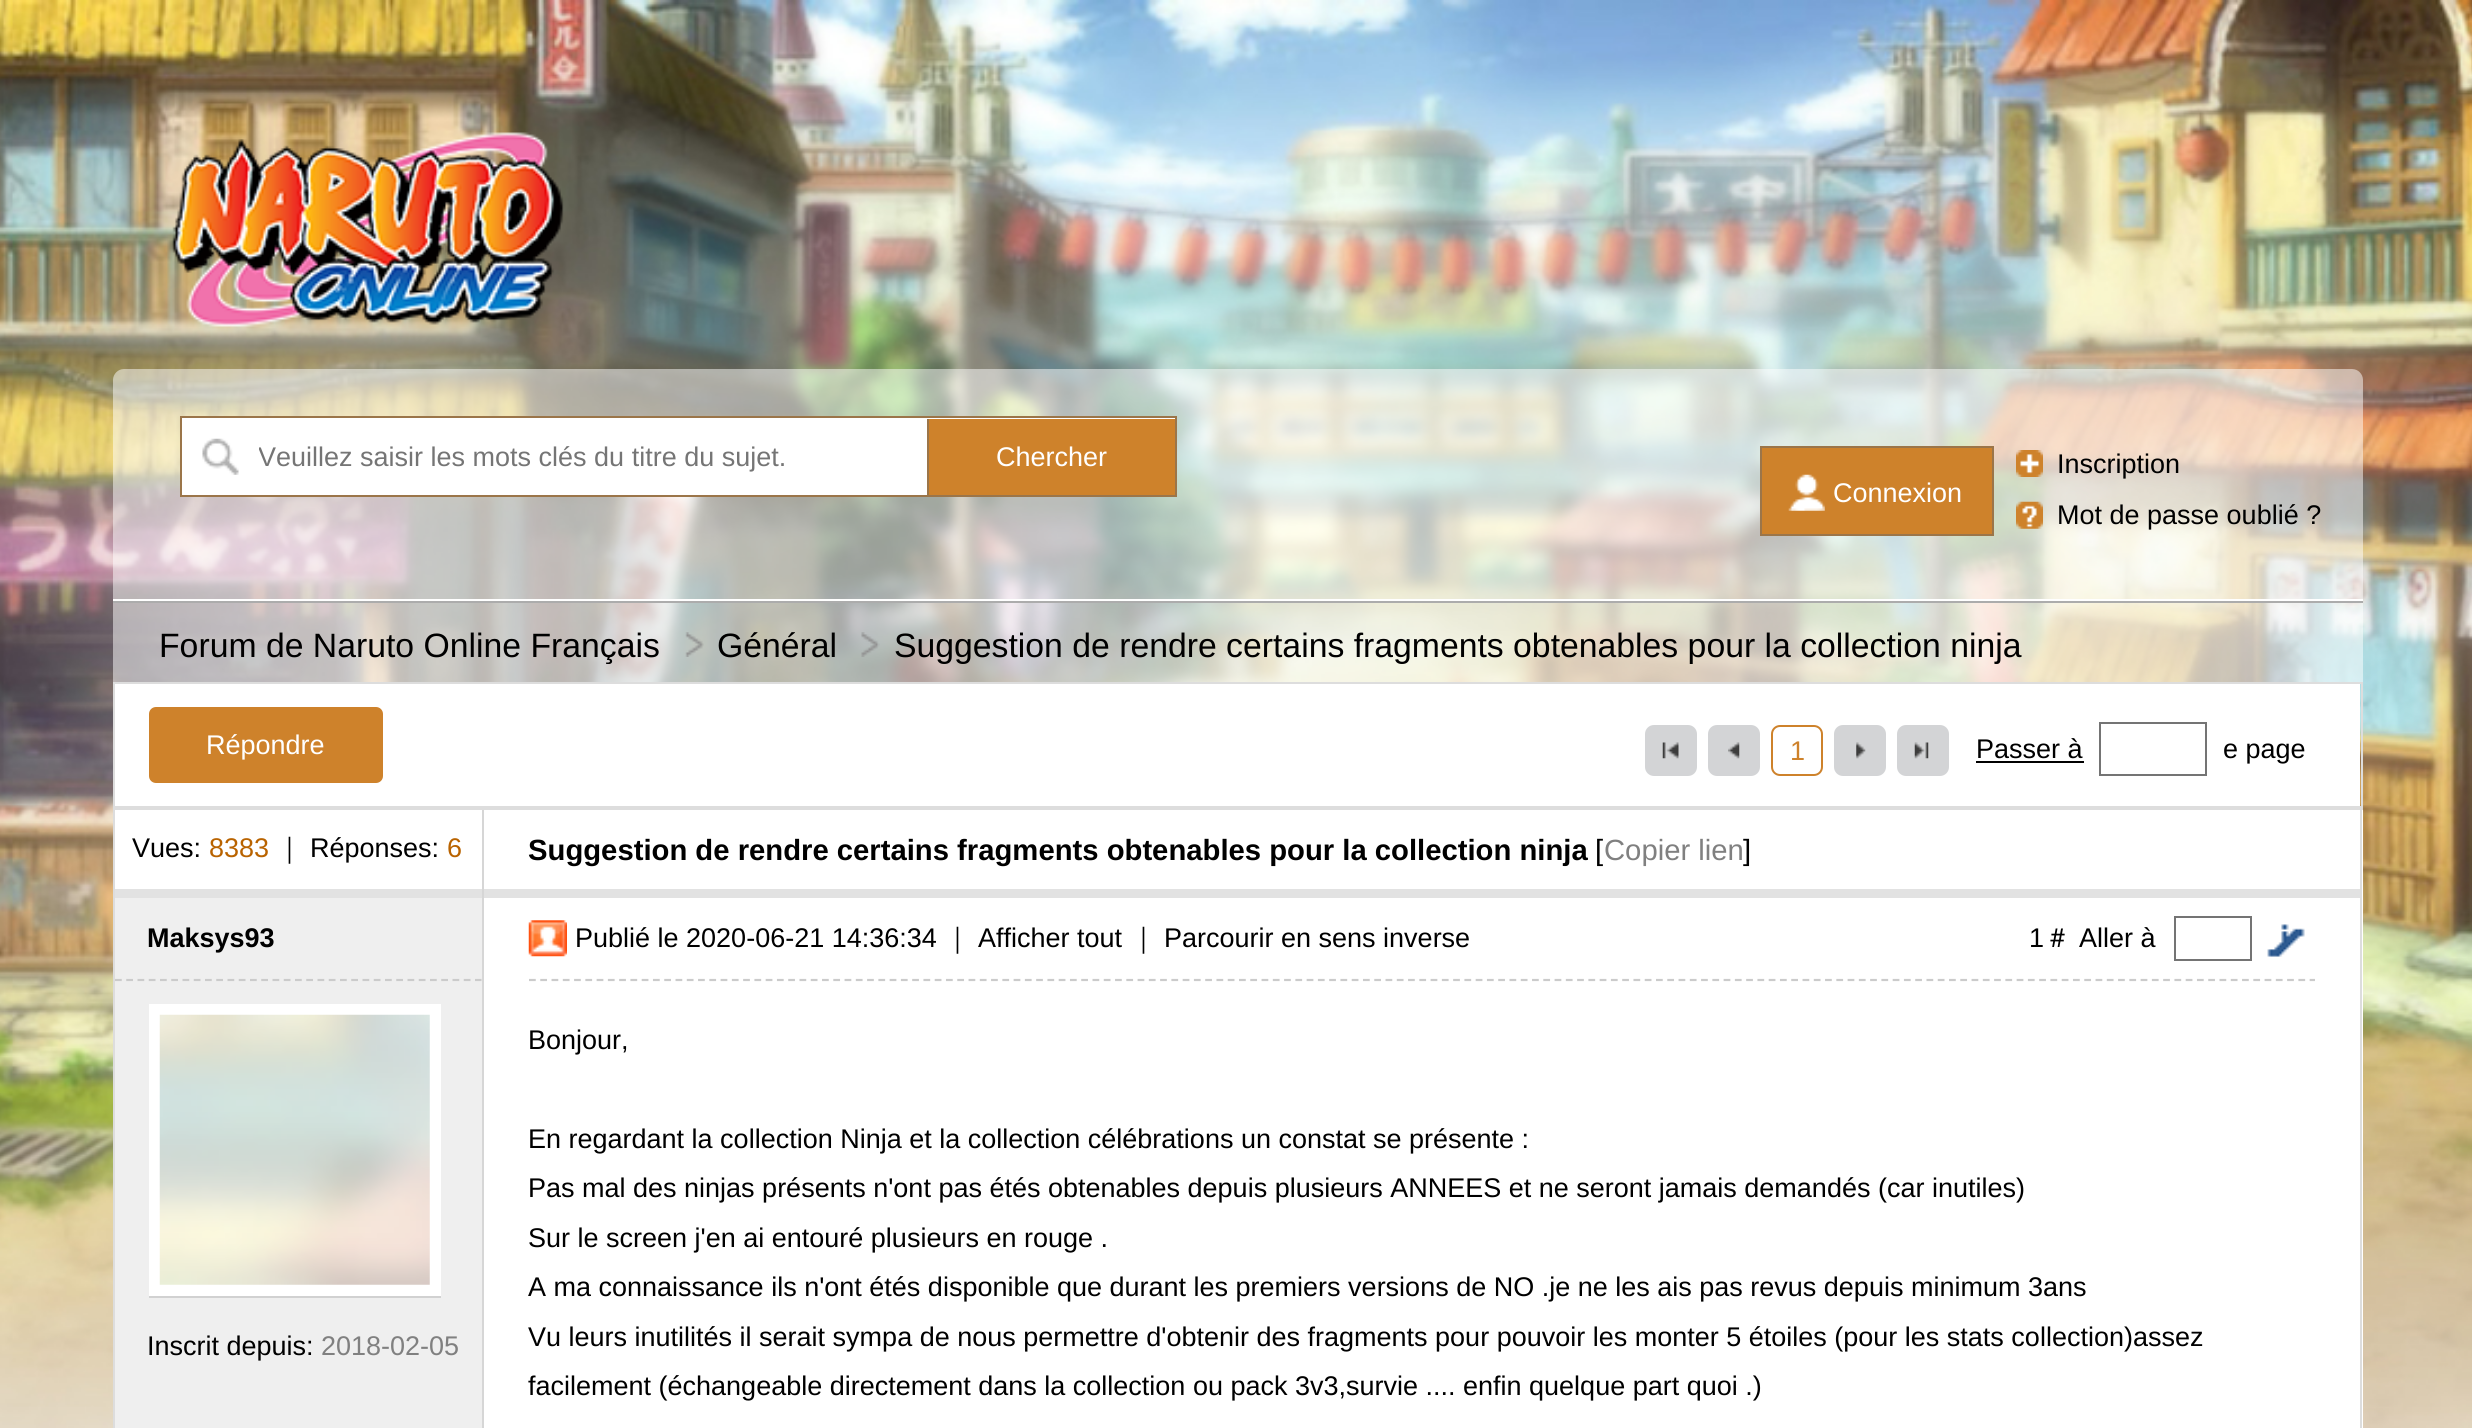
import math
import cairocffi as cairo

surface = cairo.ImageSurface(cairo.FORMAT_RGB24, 2472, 1428)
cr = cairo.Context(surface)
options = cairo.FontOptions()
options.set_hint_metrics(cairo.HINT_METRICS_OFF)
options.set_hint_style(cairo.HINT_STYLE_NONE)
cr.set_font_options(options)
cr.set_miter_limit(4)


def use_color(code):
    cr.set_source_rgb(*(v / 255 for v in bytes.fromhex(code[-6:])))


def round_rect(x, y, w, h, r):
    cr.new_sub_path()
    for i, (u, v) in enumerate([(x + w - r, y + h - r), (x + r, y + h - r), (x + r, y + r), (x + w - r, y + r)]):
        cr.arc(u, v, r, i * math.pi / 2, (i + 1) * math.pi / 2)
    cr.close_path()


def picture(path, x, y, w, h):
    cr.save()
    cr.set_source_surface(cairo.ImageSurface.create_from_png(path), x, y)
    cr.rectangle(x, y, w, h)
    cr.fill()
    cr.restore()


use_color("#ffffff")
cr.paint()
picture("img1.png", 0, 0, 2472, 1428)
picture("img2.png", 172, 132, 392, 195)
cr.set_source_rgba(1, 1, 1, 0.5)
cr.new_path()
cr.move_to(124, 369)
cr.line_to(2352, 369)
cr.curve_to(2358, 369, 2363, 374, 2363, 380)
cr.line_to(2363, 601)
cr.line_to(113, 601)
cr.line_to(113, 380)
cr.curve_to(113, 374, 118, 369, 124, 369)
cr.close_path()
cr.fill()
use_color("#ffffff")
cr.rectangle(113, 599, 2250, 2)
cr.fill()
cr.rectangle(181, 417, 995, 79)
cr.fill_preserve()
use_color("#9b7549")
cr.stroke()
picture("img3.png", 202, 438, 37, 37)
cr.save()
cr.rectangle(259, 441, 668, 32)
cr.clip()
cr.select_font_face("Liberation Sans")
cr.set_font_size(27)
use_color("#757575")
cr.move_to(258, 466)
cr.show_text("Veuillez saisir les mots clés du titre du sujet.")
cr.restore()
use_color("#ce822b")
cr.rectangle(929, 419, 246, 76)
cr.fill()
use_color("#9b7549")
cr.rectangle(927, 419, 2, 76)
cr.fill()
cr.select_font_face("Liberation Sans")
cr.set_font_size(27)
use_color("#ffffff")
cr.move_to(996, 466)
cr.show_text("Chercher")
use_color("#ce822b")
cr.rectangle(1762, 448, 230, 86)
cr.fill()
picture("img4.png", 1788, 474, 37, 37)
cr.rectangle(1761, 447, 232, 88)
use_color("#9b7549")
cr.stroke()
use_color("#ffffff")
cr.move_to(1833, 502)
cr.show_text("Connexion")
picture("img5.png", 2016, 450, 27, 27)
use_color("#000000")
cr.move_to(2057, 473)
cr.show_text("Inscription")
picture("img6.png", 2016, 501, 27, 28)
cr.move_to(2057, 524)
cr.show_text("Mot de passe oublié ?")
cr.set_source_rgba(1, 1, 1, 0.5)
cr.rectangle(113, 603, 2250, 79)
cr.fill()
use_color("#acacac")
cr.rectangle(113, 601, 2250, 2)
cr.fill()
cr.save()
cr.rectangle(113, 603, 2182, 61)
cr.clip()
cr.set_font_size(33.75)
use_color("#000000")
cr.move_to(159, 657)
cr.show_text("Forum de Naruto Online Français")
cr.restore()
picture("img7.png", 685, 632, 19, 25)
cr.set_font_size(33.75)
use_color("#000000")
cr.move_to(717, 657)
cr.show_text("Général")
picture("img8.png", 861, 632, 19, 25)
cr.move_to(894, 657)
cr.show_text("Suggestion de rendre certains fragments obtenables pour la collection ninja")
cr.rectangle(114, 683, 2248, 124)
use_color("#dddddd")
cr.stroke()
use_color("#ffffff")
cr.rectangle(115, 684, 2245, 122)
cr.fill()
use_color("#ce822b")
round_rect(149, 707, 234, 76, 7)
cr.fill()
cr.set_font_size(27)
use_color("#ffffff")
cr.move_to(206, 754)
cr.show_text("Répondre")
use_color("#d3d4d6")
round_rect(1645, 725, 52, 51, 9)
cr.fill()
picture("img9.png", 1662, 742, 17, 17)
round_rect(1708, 725, 52, 51, 9)
cr.fill()
picture("img10.png", 1728, 742, 12, 17)
round_rect(1772, 726, 50, 49, 8)
use_color("#ce822b")
cr.stroke()
cr.move_to(1790, 760)
cr.show_text("1")
use_color("#d3d4d6")
round_rect(1834, 725, 52, 51, 9)
cr.fill()
picture("img11.png", 1856, 742, 10, 17)
round_rect(1897, 725, 52, 51, 9)
cr.fill()
picture("img12.png", 1914, 742, 15, 17)
use_color("#000000")
cr.move_to(1976, 758)
cr.show_text("Passer à")
cr.rectangle(1976, 761, 108, 2)
cr.fill()
cr.rectangle(2100, 723, 106, 52)
use_color("#747474")
cr.stroke()
use_color("#000000")
cr.move_to(2223, 758)
cr.show_text("e page")
use_color("#ffffff")
cr.rectangle(115, 810, 2248, 79)
cr.fill()
use_color("#dddddd")
cr.rectangle(113, 808, 2250, 2)
cr.fill()
cr.rectangle(2360, 808, 2, 620)
cr.fill()
cr.rectangle(113, 808, 2, 620)
cr.fill()
use_color("#d6d6d6")
cr.rectangle(482, 810, 2, 618)
cr.fill()
use_color("#000000")
cr.move_to(132, 857)
cr.show_text("Vues:")
use_color("#b96300")
cr.move_to(209, 857)
cr.show_text("8383")
cr.select_font_face("WenQuanYi Zen Hei Medium")
use_color("#000000")
cr.move_to(276, 857)
cr.show_text("｜")
cr.select_font_face("Liberation Sans")
cr.move_to(310, 857)
cr.show_text("Réponses:")
use_color("#b96300")
cr.move_to(447, 857)
cr.show_text("6")
cr.select_font_face("Liberation Sans", cairo.FONT_SLANT_NORMAL, cairo.FONT_WEIGHT_BOLD)
cr.set_font_size(29.25)
use_color("#000000")
cr.move_to(528, 860)
cr.show_text("Suggestion de rendre certains fragments obtenables pour la collection ninja")
cr.select_font_face("Liberation Sans")
cr.move_to(1595, 860)
cr.show_text("[")
use_color("#808080")
cr.move_to(1604, 860)
cr.show_text("Copier lien")
use_color("#000000")
cr.move_to(1743, 860)
cr.show_text("]")
use_color("#ffffff")
cr.rectangle(2362, 889, 1, 539)
cr.fill()
use_color("#efefef")
cr.rectangle(115, 898, 367, 530)
cr.fill()
use_color("#e2e2e2")
cr.rectangle(115, 889, 367, 9)
cr.fill()
cr.new_path()
cr.move_to(115, 980)
cr.line_to(481.5, 980)
use_color("#cbcbcb")
cr.set_line_width(2.2)
cr.set_dash([6.75, 4.5])
cr.stroke()
cr.select_font_face("Liberation Sans", cairo.FONT_SLANT_NORMAL, cairo.FONT_WEIGHT_BOLD)
cr.set_font_size(27)
use_color("#000000")
cr.move_to(147, 947)
cr.show_text("Maksys93")
use_color("#ffffff")
cr.rectangle(149, 1004, 292, 292)
cr.fill()
use_color("#d1d1d1")
cr.rectangle(149, 1296, 292, 2)
cr.fill()
picture("img13.png", 159, 1014, 271, 271)
cr.select_font_face("Liberation Sans")
use_color("#000000")
cr.move_to(147, 1355)
cr.show_text("Inscrit depuis:")
use_color("#808080")
cr.move_to(321, 1355)
cr.show_text("2018-02-05")
use_color("#ffffff")
cr.rectangle(484, 898, 1876, 530)
cr.fill()
use_color("#e2e2e2")
cr.rectangle(484, 889, 1876, 9)
cr.fill()
cr.new_path()
cr.move_to(529, 980)
cr.line_to(2315, 980)
use_color("#cbcbcb")
cr.set_dash([6.75, 4.52])
cr.stroke()
picture("img14.png", 528, 920, 39, 37)
use_color("#000000")
cr.move_to(575, 947)
cr.show_text("Publié le 2020-06-21 14:36:34")
cr.select_font_face("WenQuanYi Zen Hei Medium")
cr.move_to(944, 947)
cr.show_text("｜")
cr.select_font_face("Liberation Sans")
cr.move_to(978, 947)
cr.show_text("Afficher tout")
cr.select_font_face("WenQuanYi Zen Hei Medium")
cr.move_to(1130, 947)
cr.show_text("｜")
cr.select_font_face("Liberation Sans")
cr.move_to(1164, 947)
cr.show_text("Parcourir en sens inverse")
cr.move_to(2029, 947)
cr.show_text("1")
cr.select_font_face("WenQuanYi Zen Hei Medium")
cr.move_to(2044, 947)
cr.show_text("＃")
cr.select_font_face("Liberation Sans")
cr.move_to(2079, 947)
cr.show_text("Aller à")
cr.rectangle(2175, 917, 76, 43)
use_color("#747474")
cr.set_line_width(2)
cr.set_dash([])
cr.stroke()
picture("img15.png", 2267, 924, 38, 33)
use_color("#000000")
cr.move_to(528, 1049)
cr.show_text("Bonjour,")
cr.move_to(528, 1148)
cr.show_text("En regardant la collection Ninja et la collection célébrations un constat se présente :")
cr.move_to(528, 1197)
cr.show_text("Pas mal des ninjas présents n'ont pas étés obtenables depuis plusieurs ANNEES et ne seront jamais demandés (car inutiles)")
cr.move_to(528, 1247)
cr.show_text("Sur le screen j'en ai entouré plusieurs en rouge .")
cr.move_to(528, 1296)
cr.show_text("A ma connaissance ils n'ont étés disponible que durant les premiers versions de NO .je ne les ais pas revus depuis minimum 3ans")
cr.move_to(528, 1346)
cr.show_text("Vu leurs inutilités il serait sympa de nous permettre d'obtenir des fragments pour pouvoir les monter 5 étoiles (pour les stats collection)assez")
cr.move_to(528, 1395)
cr.show_text("facilement (échangeable directement dans la collection ou pack 3v3,survie .... enfin quelque part quoi .)")
surface.write_to_png("result.png")
